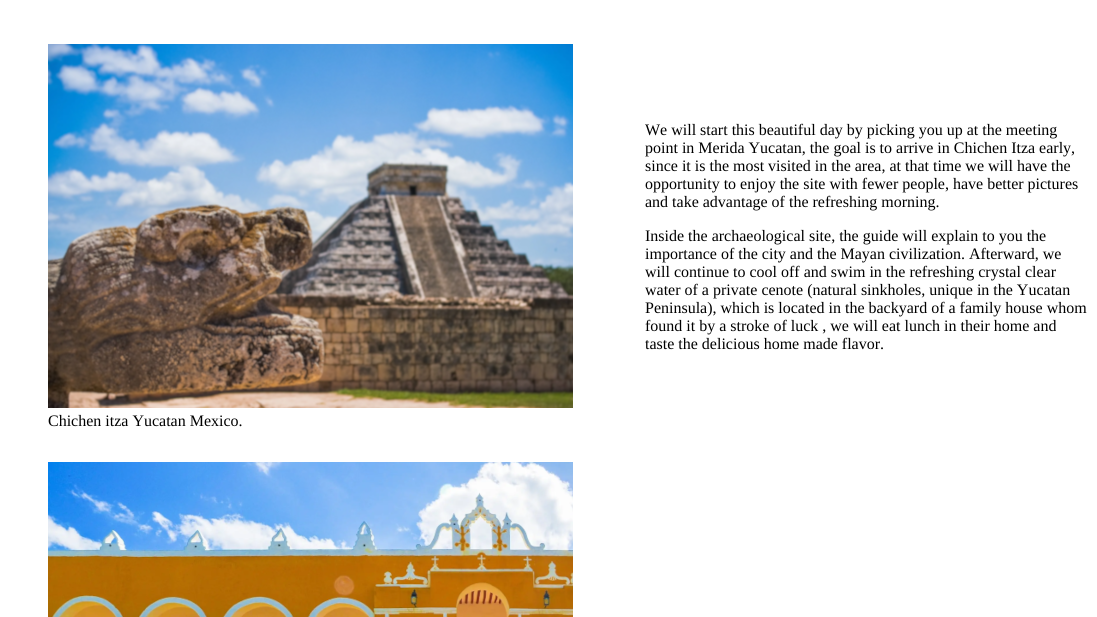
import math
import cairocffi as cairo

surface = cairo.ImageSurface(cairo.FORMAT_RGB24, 1097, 617)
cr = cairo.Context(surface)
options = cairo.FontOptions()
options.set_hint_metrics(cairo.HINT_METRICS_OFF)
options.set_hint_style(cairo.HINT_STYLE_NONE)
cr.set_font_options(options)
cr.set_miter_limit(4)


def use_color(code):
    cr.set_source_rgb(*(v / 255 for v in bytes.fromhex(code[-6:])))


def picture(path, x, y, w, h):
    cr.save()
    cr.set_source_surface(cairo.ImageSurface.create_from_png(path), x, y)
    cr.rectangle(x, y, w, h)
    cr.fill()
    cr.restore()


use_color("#ffffff")
cr.paint()
cr.select_font_face("Liberation Serif")
cr.set_font_size(16)
use_color("#000000")
cr.move_to(645, 135)
cr.show_text("We will start this beautiful day by picking you up at the meeting")
cr.move_to(645, 153)
cr.show_text("point in Merida Yucatan, the goal is to arrive in Chichen Itza early,")
cr.move_to(645, 171)
cr.show_text("since it is the most visited in the area, at that time we will have the")
cr.move_to(645, 189)
cr.show_text("opportunity to enjoy the site with fewer people, have better pictures")
cr.move_to(645, 207)
cr.show_text("and take advantage of the refreshing morning.")
cr.move_to(645, 241)
cr.show_text("Inside the archaeological site, the guide will explain to you the")
cr.move_to(645, 259)
cr.show_text("importance of the city and the Mayan civilization. Afterward, we")
cr.move_to(645, 277)
cr.show_text("will continue to cool off and swim in the refreshing crystal clear")
cr.move_to(645, 295)
cr.show_text("water of a private cenote (natural sinkholes, unique in the Yucatan")
cr.move_to(645, 313)
cr.show_text("Peninsula), which is located in the backyard of a family house whom")
cr.move_to(645, 331)
cr.show_text("found it by a stroke of luck , we will eat lunch in their home and")
cr.move_to(645, 349)
cr.show_text("taste the delicious home made flavor.")
picture("img1.png", 48, 44, 525, 364)
cr.move_to(48, 426)
cr.show_text("Chichen itza Yucatan Mexico.")
picture("img2.png", 48, 462, 525, 155)
surface.write_to_png("result.png")
